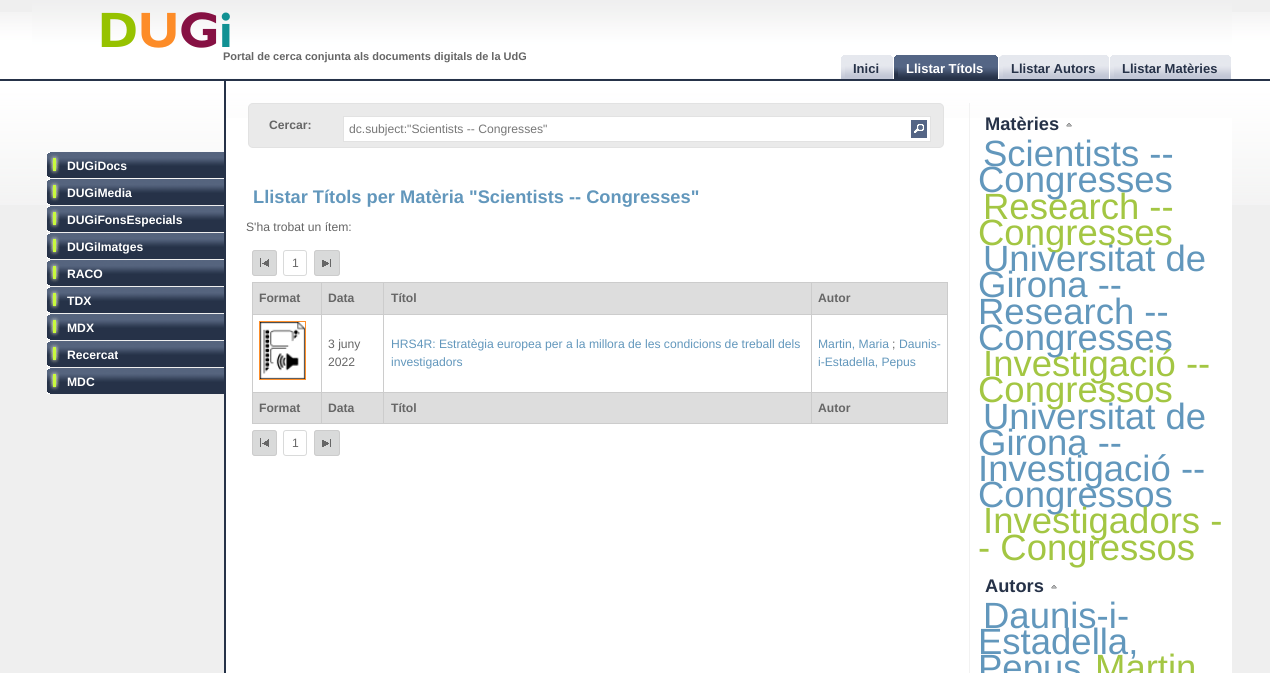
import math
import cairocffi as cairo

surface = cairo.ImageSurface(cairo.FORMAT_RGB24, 1270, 673)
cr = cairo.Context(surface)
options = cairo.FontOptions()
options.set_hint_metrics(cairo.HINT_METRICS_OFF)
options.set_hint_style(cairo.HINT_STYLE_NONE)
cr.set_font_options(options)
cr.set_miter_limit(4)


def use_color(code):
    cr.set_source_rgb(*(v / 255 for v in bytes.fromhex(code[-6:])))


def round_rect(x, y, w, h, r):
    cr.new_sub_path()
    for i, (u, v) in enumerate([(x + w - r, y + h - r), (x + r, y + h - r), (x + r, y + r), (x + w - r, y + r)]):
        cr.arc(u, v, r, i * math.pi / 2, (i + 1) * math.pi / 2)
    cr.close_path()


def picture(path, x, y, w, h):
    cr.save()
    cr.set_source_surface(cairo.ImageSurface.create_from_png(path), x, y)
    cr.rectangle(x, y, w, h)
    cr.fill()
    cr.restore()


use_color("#efefef")
cr.paint()
picture("img1.png", 0, 12, 1270, 193)
picture("img2.png", 32, 0, 1200, 81)
cr.select_font_face("Gill Sans", cairo.FONT_SLANT_NORMAL, cairo.FONT_WEIGHT_BOLD)
cr.set_font_size(50)
use_color("#96c200")
cr.move_to(98, 47)
cr.show_text("D")
use_color("#fd8c28")
cr.move_to(138, 47)
cr.show_text("U")
use_color("#861143")
cr.move_to(179, 47)
cr.show_text("G")
use_color("#119193")
cr.move_to(219, 47)
cr.show_text("i")
cr.select_font_face("Liberation Sans", cairo.FONT_SLANT_NORMAL, cairo.FONT_WEIGHT_BOLD)
cr.set_font_size(11)
use_color("#666666")
cr.move_to(223, 60)
cr.show_text("Portal de cerca conjunta als documents digitals de la UdG")
picture("img3.png", 841, 55, 4, 24)
picture("img4.png", 845, 55, 49, 24)
cr.set_font_size(13)
use_color("#263248")
cr.move_to(853, 73)
cr.show_text("Inici")
picture("img5.png", 894, 55, 4, 24)
picture("img6.png", 898, 55, 101, 24)
use_color("#ffffff")
cr.move_to(906, 73)
cr.show_text("Llistar Títols")
picture("img7.png", 999, 55, 4, 24)
picture("img8.png", 1003, 55, 106, 24)
use_color("#263248")
cr.move_to(1011, 73)
cr.show_text("Llistar Autors")
picture("img3.png", 1110, 55, 4, 24)
picture("img9.png", 1114, 55, 117, 24)
cr.move_to(1122, 73)
cr.show_text("Llistar Matèries")
picture("img10.png", 47, 152, 177, 26)
cr.set_font_size(12.15)
use_color("#ffffff")
cr.move_to(67, 170)
cr.show_text("DUGiDocs")
picture("img10.png", 47, 179, 177, 26)
cr.move_to(67, 197)
cr.show_text("DUGiMedia")
picture("img10.png", 47, 206, 177, 26)
cr.move_to(67, 224)
cr.show_text("DUGiFonsEspecials")
picture("img10.png", 47, 233, 177, 26)
cr.move_to(67, 251)
cr.show_text("DUGiImatges")
picture("img10.png", 47, 260, 177, 26)
cr.move_to(67, 278)
cr.show_text("RACO")
picture("img10.png", 47, 287, 177, 26)
cr.move_to(67, 305)
cr.show_text("TDX")
picture("img10.png", 47, 314, 177, 26)
cr.move_to(67, 332)
cr.show_text("MDX")
picture("img10.png", 47, 341, 177, 26)
cr.move_to(67, 359)
cr.show_text("Recercat")
picture("img10.png", 47, 368, 177, 26)
cr.move_to(67, 386)
cr.show_text("MDC")
cr.rectangle(226, 118, 1006, 555)
cr.fill()
use_color("#263248")
cr.rectangle(224, 81, 2, 592)
cr.fill()
use_color("#eaeaea")
round_rect(248.5, 103.5, 695, 44, 4.5)
cr.fill_preserve()
use_color("#e2e2e2")
cr.set_line_width(1)
cr.stroke()
use_color("#666666")
cr.move_to(269, 129)
cr.show_text("Cercar:")
use_color("#ffffff")
cr.rectangle(343.5, 116.5, 587, 25)
cr.fill_preserve()
use_color("#e2e2e2")
cr.stroke()
cr.select_font_face("Liberation Sans")
use_color("#777777")
cr.move_to(349, 133)
cr.show_text("dc.subject:\"Scientists -- Congresses\"")
use_color("#546585")
cr.rectangle(911, 120, 16, 18)
cr.fill()
picture("img11.png", 914, 124, 10, 9)
cr.select_font_face("Liberation Sans", cairo.FONT_SLANT_NORMAL, cairo.FONT_WEIGHT_BOLD)
cr.set_font_size(18.25)
use_color("#6297bc")
cr.move_to(253, 203)
cr.show_text("Llistar Títols per Matèria \"Scientists -- Congresses\"")
cr.select_font_face("Liberation Sans")
cr.set_font_size(12.15)
use_color("#666666")
cr.move_to(246, 231)
cr.show_text("S'ha trobat un ítem:")
use_color("#d9dada")
round_rect(252, 250, 25, 26, 3)
cr.fill()
picture("img12.png", 260, 258, 9, 9)
round_rect(252.5, 250.5, 24, 25, 2.5)
use_color("#cccccc")
cr.stroke()
use_color("#d9dada")
round_rect(314, 250, 26, 26, 3)
cr.fill()
round_rect(283.5, 250.5, 23, 25, 2.5)
cr.stroke()
use_color("#666666")
cr.move_to(292, 267)
cr.show_text("1")
picture("img13.png", 322, 259, 9, 8)
round_rect(314.5, 250.5, 25, 25, 2.5)
use_color("#cccccc")
cr.stroke()
use_color("#dddddd")
cr.rectangle(253, 283, 694, 31)
cr.fill()
use_color("#cccccc")
cr.rectangle(811, 282, 137, 1)
cr.fill()
cr.rectangle(811, 314, 137, 1)
cr.fill()
cr.rectangle(947, 314, 1, 79)
cr.fill()
cr.rectangle(811, 392, 137, 1)
cr.fill()
cr.rectangle(811, 314, 1, 79)
cr.fill()
cr.rectangle(383, 314, 429, 1)
cr.fill()
cr.rectangle(811, 282, 1, 33)
cr.fill()
cr.rectangle(383, 282, 429, 1)
cr.fill()
cr.rectangle(383, 392, 429, 1)
cr.fill()
cr.rectangle(383, 314, 1, 79)
cr.fill()
cr.rectangle(321, 314, 63, 1)
cr.fill()
cr.rectangle(383, 282, 1, 33)
cr.fill()
cr.rectangle(321, 282, 63, 1)
cr.fill()
cr.rectangle(321, 392, 63, 1)
cr.fill()
cr.rectangle(321, 314, 1, 79)
cr.fill()
cr.rectangle(252, 314, 70, 1)
cr.fill()
cr.rectangle(321, 282, 1, 33)
cr.fill()
cr.rectangle(252, 282, 70, 1)
cr.fill()
cr.rectangle(252, 392, 70, 1)
cr.fill()
cr.rectangle(252, 314, 1, 79)
cr.fill()
cr.rectangle(252, 282, 1, 33)
cr.fill()
cr.select_font_face("Liberation Sans", cairo.FONT_SLANT_NORMAL, cairo.FONT_WEIGHT_BOLD)
use_color("#666666")
cr.move_to(259, 302)
cr.show_text("Format")
cr.move_to(328, 302)
cr.show_text("Data")
cr.move_to(391, 302)
cr.show_text("Títol")
use_color("#cccccc")
cr.rectangle(947, 282, 1, 33)
cr.fill()
use_color("#666666")
cr.move_to(818, 302)
cr.show_text("Autor")
cr.rectangle(259.5, 321.5, 46, 58)
use_color("#fe8e29")
cr.stroke()
picture("img14.png", 260, 322, 45, 57)
cr.select_font_face("Liberation Sans")
use_color("#666666")
cr.move_to(328, 348)
cr.show_text("3 juny")
cr.move_to(328, 366)
cr.show_text("2022")
use_color("#6297bc")
cr.move_to(391, 348)
cr.show_text("HRS4R: Estratègia europea per a la millora de les condicions de treball dels")
cr.move_to(391, 366)
cr.show_text("investigadors")
cr.move_to(818, 348)
cr.show_text("Martin, Maria")
use_color("#666666")
cr.move_to(892, 348)
cr.show_text(";")
use_color("#6297bc")
cr.move_to(899, 348)
cr.show_text("Daunis-")
cr.move_to(818, 366)
cr.show_text("i-Estadella, Pepus")
use_color("#dddddd")
cr.rectangle(253, 393, 694, 30)
cr.fill()
use_color("#cccccc")
cr.rectangle(947, 392, 1, 32)
cr.fill()
cr.rectangle(811, 423, 137, 1)
cr.fill()
cr.rectangle(811, 392, 1, 32)
cr.fill()
cr.rectangle(383, 423, 429, 1)
cr.fill()
cr.rectangle(383, 392, 1, 32)
cr.fill()
cr.rectangle(321, 423, 63, 1)
cr.fill()
cr.rectangle(321, 392, 1, 32)
cr.fill()
cr.rectangle(252, 423, 70, 1)
cr.fill()
cr.rectangle(252, 392, 1, 32)
cr.fill()
cr.select_font_face("Liberation Sans", cairo.FONT_SLANT_NORMAL, cairo.FONT_WEIGHT_BOLD)
use_color("#666666")
cr.move_to(259, 412)
cr.show_text("Format")
cr.move_to(328, 412)
cr.show_text("Data")
cr.move_to(391, 412)
cr.show_text("Títol")
cr.move_to(818, 412)
cr.show_text("Autor")
use_color("#d9dada")
round_rect(252, 430, 25, 26, 3)
cr.fill()
picture("img12.png", 260, 438, 9, 9)
round_rect(252.5, 430.5, 24, 25, 2.5)
use_color("#cccccc")
cr.stroke()
use_color("#d9dada")
round_rect(314, 430, 26, 26, 3)
cr.fill()
round_rect(283.5, 430.5, 23, 25, 2.5)
cr.stroke()
cr.select_font_face("Liberation Sans")
use_color("#666666")
cr.move_to(292, 447)
cr.show_text("1")
picture("img13.png", 322, 439, 9, 8)
round_rect(314.5, 430.5, 25, 25, 2.5)
use_color("#cccccc")
cr.stroke()
use_color("#f2f2f2")
cr.rectangle(969, 103, 1, 570)
cr.fill()
cr.select_font_face("Liberation Sans", cairo.FONT_SLANT_NORMAL, cairo.FONT_WEIGHT_BOLD)
cr.set_font_size(18.25)
use_color("#263248")
cr.move_to(985, 130)
cr.show_text("Matèries")
picture("img15.png", 1066, 123, 6, 4)
cr.select_font_face("Liberation Sans")
cr.set_font_size(36.5)
use_color("#6297bc")
cr.move_to(983, 166)
cr.show_text("Scientists --")
cr.move_to(978, 192)
cr.show_text("Congresses")
use_color("#a3c643")
cr.move_to(983, 219)
cr.show_text("Research --")
cr.move_to(978, 245)
cr.show_text("Congresses")
use_color("#6297bc")
cr.move_to(983, 271)
cr.show_text("Universitat de")
cr.move_to(978, 297)
cr.show_text("Girona --")
cr.move_to(978, 324)
cr.show_text("Research --")
cr.move_to(978, 350)
cr.show_text("Congresses")
use_color("#a3c643")
cr.move_to(983, 376)
cr.show_text("Investigació --")
cr.move_to(978, 402)
cr.show_text("Congressos")
use_color("#6297bc")
cr.move_to(983, 429)
cr.show_text("Universitat de")
cr.move_to(978, 455)
cr.show_text("Girona --")
cr.move_to(978, 481)
cr.show_text("Investigació --")
cr.move_to(978, 507)
cr.show_text("Congressos")
use_color("#a3c643")
cr.move_to(983, 533)
cr.show_text("Investigadors -")
cr.move_to(978, 560)
cr.show_text("- Congressos")
cr.select_font_face("Liberation Sans", cairo.FONT_SLANT_NORMAL, cairo.FONT_WEIGHT_BOLD)
cr.set_font_size(18.25)
use_color("#263248")
cr.move_to(985, 592)
cr.show_text("Autors")
picture("img16.png", 1051, 585, 6, 4)
cr.select_font_face("Liberation Sans")
cr.set_font_size(36.5)
use_color("#6297bc")
cr.move_to(983, 628)
cr.show_text("Daunis-i-")
cr.move_to(978, 654)
cr.show_text("Estadella,")
cr.move_to(978, 680)
cr.show_text("Pepus")
use_color("#a3c643")
cr.move_to(1095, 680)
cr.show_text("Martin")
surface.write_to_png("result.png")
